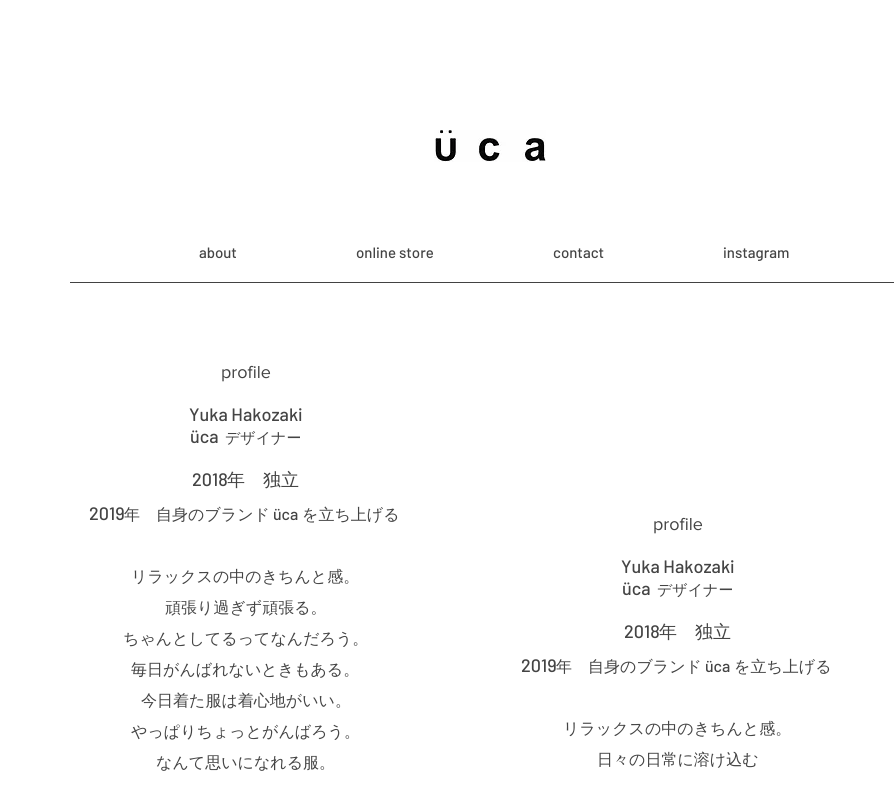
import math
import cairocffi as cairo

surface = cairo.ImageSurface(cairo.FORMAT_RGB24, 895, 794)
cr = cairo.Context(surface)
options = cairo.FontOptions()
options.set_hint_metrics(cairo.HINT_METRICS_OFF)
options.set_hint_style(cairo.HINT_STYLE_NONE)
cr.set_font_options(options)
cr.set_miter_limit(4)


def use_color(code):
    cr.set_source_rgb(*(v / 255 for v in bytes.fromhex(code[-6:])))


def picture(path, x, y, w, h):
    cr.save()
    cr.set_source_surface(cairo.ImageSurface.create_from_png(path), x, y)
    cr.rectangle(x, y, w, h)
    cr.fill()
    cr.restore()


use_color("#ffffff")
cr.paint()
picture("img1.png", 434, 130, 112, 32)
cr.select_font_face("Barlow Medium")
cr.set_font_size(15)
use_color("#444444")
cr.move_to(199, 258)
cr.show_text("about")
cr.move_to(356, 258)
cr.show_text("online store")
cr.move_to(553, 258)
cr.show_text("contact")
cr.move_to(723, 258)
cr.show_text("instagram")
use_color("#424242")
cr.rectangle(70, 282, 824, 1)
cr.fill()
cr.select_font_face("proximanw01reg")
cr.set_font_size(18)
use_color("#444444")
cr.move_to(221, 378)
cr.show_text("profile")
cr.select_font_face("Barlow Medium")
cr.move_to(189, 421)
cr.show_text("Yuka Hakozaki")
cr.move_to(190, 443)
cr.show_text("üca")
cr.select_font_face("WenQuanYi Zen Hei Medium")
cr.set_font_size(15)
cr.move_to(225, 443)
cr.show_text("デザイナー")
cr.select_font_face("Barlow Medium")
cr.set_font_size(18)
cr.move_to(192, 486)
cr.show_text("2018")
cr.select_font_face("WenQuanYi Zen Hei Medium")
cr.move_to(227, 486)
cr.show_text("年")
cr.move_to(263, 486)
cr.show_text("独立")
cr.select_font_face("Barlow Medium")
cr.move_to(89, 520)
cr.show_text("2019")
cr.select_font_face("WenQuanYi Zen Hei Medium")
cr.set_font_size(16)
cr.move_to(124, 520)
cr.show_text("年　自身のブランド")
cr.select_font_face("Barlow Medium")
cr.move_to(273, 520)
cr.show_text("üca")
cr.select_font_face("WenQuanYi Zen Hei Medium")
cr.move_to(302, 520)
cr.show_text("を立ち上げる")
cr.move_to(131, 582)
cr.show_text("リラックスの中のきちんと感。")
cr.move_to(165, 613)
cr.show_text("頑張り過ぎず頑張る。")
cr.move_to(123, 644)
cr.show_text("ちゃんとしてるってなんだろう。")
cr.move_to(131, 675)
cr.show_text("毎日がんばれないときもある。")
cr.move_to(141, 706)
cr.show_text("今日着た服は着心地がいい。")
cr.move_to(131, 737)
cr.show_text("やっぱりちょっとがんばろう。")
cr.move_to(156, 768)
cr.show_text("なんて思いになれる服。")
cr.select_font_face("proximanw01reg")
cr.set_font_size(18)
cr.move_to(653, 530)
cr.show_text("profile")
cr.select_font_face("Barlow Medium")
cr.move_to(621, 573)
cr.show_text("Yuka Hakozaki")
cr.move_to(622, 595)
cr.show_text("üca")
cr.select_font_face("WenQuanYi Zen Hei Medium")
cr.set_font_size(15)
cr.move_to(657, 595)
cr.show_text("デザイナー")
cr.select_font_face("Barlow Medium")
cr.set_font_size(18)
cr.move_to(624, 638)
cr.show_text("2018")
cr.select_font_face("WenQuanYi Zen Hei Medium")
cr.move_to(659, 638)
cr.show_text("年")
cr.move_to(695, 638)
cr.show_text("独立")
cr.select_font_face("Barlow Medium")
cr.move_to(521, 672)
cr.show_text("2019")
cr.select_font_face("WenQuanYi Zen Hei Medium")
cr.set_font_size(16)
cr.move_to(556, 672)
cr.show_text("年　自身のブランド")
cr.select_font_face("Barlow Medium")
cr.move_to(705, 672)
cr.show_text("üca")
cr.select_font_face("WenQuanYi Zen Hei Medium")
cr.move_to(734, 672)
cr.show_text("を立ち上げる")
cr.move_to(563, 734)
cr.show_text("リラックスの中のきちんと感。")
cr.move_to(597, 765)
cr.show_text("日々の日常に溶け込む")
surface.write_to_png("result.png")
